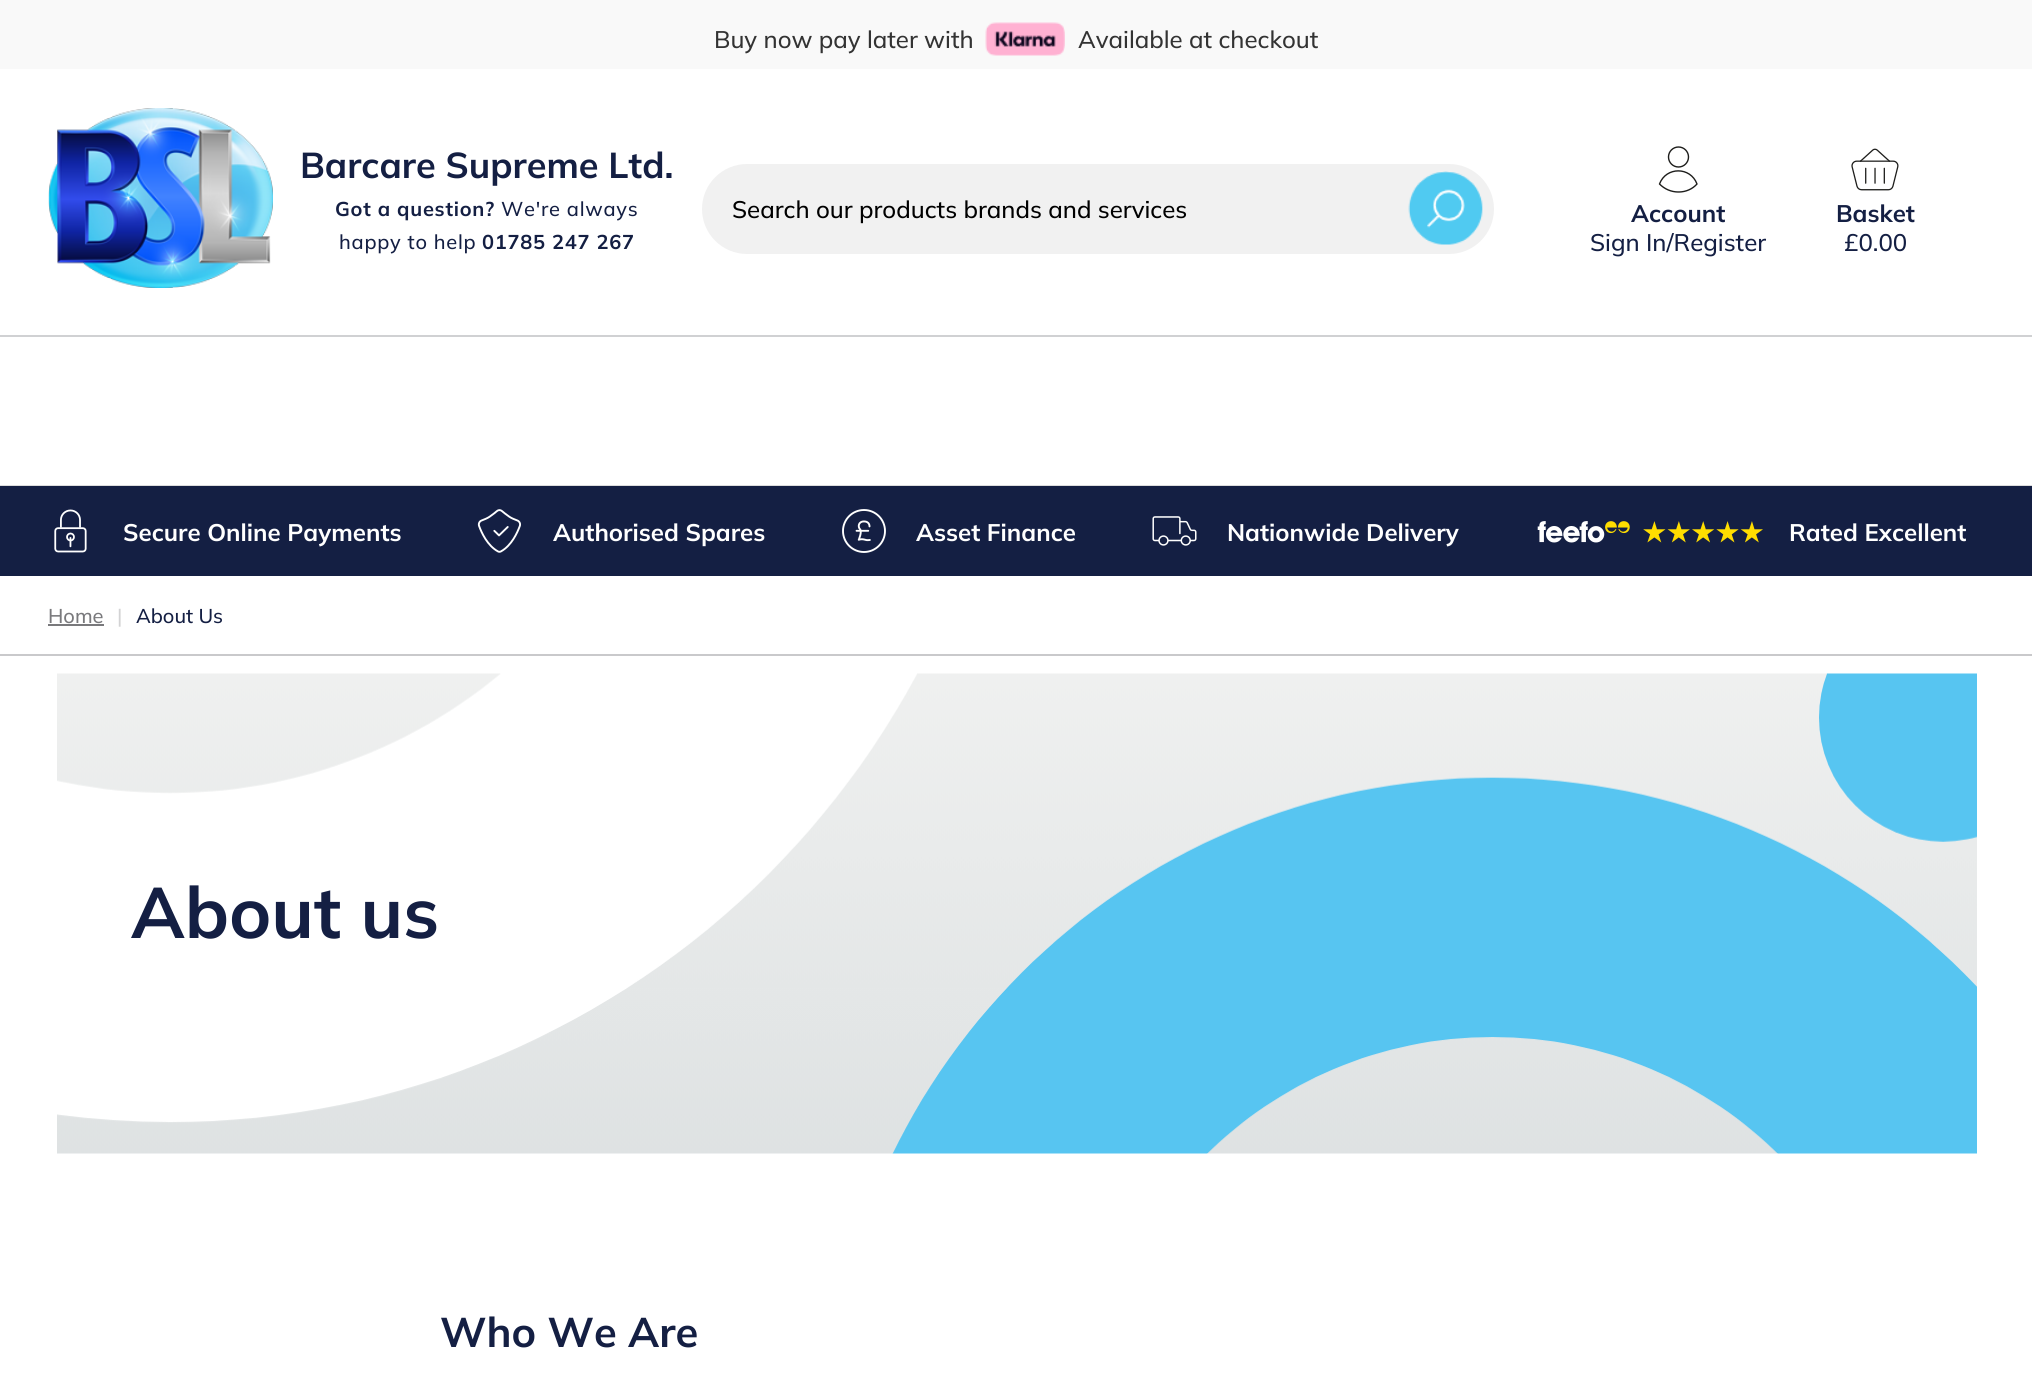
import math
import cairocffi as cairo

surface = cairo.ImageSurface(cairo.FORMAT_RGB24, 2032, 1377)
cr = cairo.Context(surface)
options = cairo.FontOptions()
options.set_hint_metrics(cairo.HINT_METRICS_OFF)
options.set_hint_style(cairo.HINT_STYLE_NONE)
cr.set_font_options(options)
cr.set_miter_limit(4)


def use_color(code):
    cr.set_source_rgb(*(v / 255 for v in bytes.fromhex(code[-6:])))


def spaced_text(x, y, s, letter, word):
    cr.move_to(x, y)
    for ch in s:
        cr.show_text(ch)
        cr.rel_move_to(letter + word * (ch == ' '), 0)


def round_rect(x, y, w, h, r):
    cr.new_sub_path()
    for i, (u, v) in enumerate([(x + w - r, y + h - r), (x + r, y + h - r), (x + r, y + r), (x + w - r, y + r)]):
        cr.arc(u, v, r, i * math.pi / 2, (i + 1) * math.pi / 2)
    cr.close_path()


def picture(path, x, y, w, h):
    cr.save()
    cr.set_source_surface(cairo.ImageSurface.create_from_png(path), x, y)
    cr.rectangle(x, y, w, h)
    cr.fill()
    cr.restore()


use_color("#ffffff")
cr.paint()
use_color("#f9f9f9")
cr.rectangle(0, 0, 2032, 69)
cr.fill()
cr.select_font_face("Mulish Medium")
cr.set_font_size(24)
use_color("#333333")
cr.move_to(714, 48)
cr.show_text("Buy now pay later with")
picture("img1.png", 985, 22, 80, 34)
cr.move_to(1078, 48)
cr.show_text("Available at checkout")
use_color("#d0d1d3")
cr.rectangle(0, 335, 2032, 2)
cr.fill()
picture("img2.png", 48, 108, 225, 180)
cr.select_font_face("Mulish", cairo.FONT_SLANT_NORMAL, cairo.FONT_WEIGHT_BOLD)
cr.set_font_size(36)
use_color("#141f43")
cr.move_to(300, 178)
cr.show_text("Barcare Supreme Ltd.")
cr.set_font_size(20)
spaced_text(335, 216, "Got a question?", 0.75, 0)
cr.select_font_face("Mulish Medium")
spaced_text(501, 216, "We're always", 0.75, 0)
spaced_text(339, 249, "happy to help", 0.75, 0)
cr.select_font_face("Mulish", cairo.FONT_SLANT_NORMAL, cairo.FONT_WEIGHT_BOLD)
spaced_text(482, 249, "01785 247 267", 0.75, 0)
use_color("#f1f1f1")
round_rect(702, 164, 792, 90, 45)
cr.fill()
cr.select_font_face("Mulish Medium")
cr.set_font_size(24)
use_color("#000000")
cr.move_to(732, 218)
cr.show_text("Search our products brands and services")
picture("img3.png", 1408, 171, 75, 74)
cr.arc(1678.5, 157, 10, 0, 2 * math.pi)
use_color("#1d1d1b")
cr.set_line_width(1.4)
cr.stroke()
cr.new_path()
cr.move_to(1678.5, 192)
cr.curve_to(1686, 192, 1692.5, 189, 1697, 184)
cr.curve_to(1690.5, 166.5, 1666, 166.5, 1659.5, 184)
cr.curve_to(1664.5, 189, 1671, 192, 1678.5, 192)
cr.close_path()
cr.set_line_cap(cairo.LINE_CAP_ROUND)
cr.set_line_join(cairo.LINE_JOIN_ROUND)
cr.stroke()
cr.select_font_face("Mulish", cairo.FONT_SLANT_NORMAL, cairo.FONT_WEIGHT_BOLD)
use_color("#141f43")
cr.move_to(1631, 222)
cr.show_text("Account")
cr.select_font_face("Mulish Medium")
cr.move_to(1590, 251)
cr.show_text("Sign In/Register")
picture("img4.png", 1851, 148, 48, 43)
cr.select_font_face("Mulish", cairo.FONT_SLANT_NORMAL, cairo.FONT_WEIGHT_BOLD)
cr.move_to(1836, 222)
cr.show_text("Basket")
cr.select_font_face("Mulish Medium")
cr.move_to(1844, 251)
cr.show_text("£0.00")
use_color("#dddddd")
cr.rectangle(0, 485, 2032, 1)
cr.fill()
use_color("#141f43")
cr.rectangle(0, 486, 2032, 90)
cr.fill()
picture("img5.png", 54, 509, 33, 44)
cr.select_font_face("Mulish", cairo.FONT_SLANT_NORMAL, cairo.FONT_WEIGHT_BOLD)
use_color("#ffffff")
cr.move_to(123, 541)
cr.show_text("Secure Online Payments")
picture("img6.png", 477, 509, 44, 44)
cr.move_to(553, 541)
cr.show_text("Authorised Spares")
picture("img7.png", 842, 509, 44, 44)
cr.move_to(916, 541)
cr.show_text("Asset Finance")
picture("img8.png", 1152, 516, 45, 30)
cr.move_to(1227, 541)
cr.show_text("Nationwide Delivery")
picture("img9.png", 1537, 521, 226, 22)
cr.move_to(1789, 541)
cr.show_text("Rated Excellent")
use_color("#c9c9cb")
cr.rectangle(0, 654, 2032, 2)
cr.fill()
cr.select_font_face("Mulish Medium")
cr.set_font_size(20)
use_color("#79797c")
cr.move_to(48, 623)
cr.show_text("Home")
cr.rectangle(48, 624, 56, 2)
cr.fill()
use_color("#d3d3d4")
cr.move_to(117, 623)
cr.show_text("|")
use_color("#141f43")
cr.move_to(136, 623)
cr.show_text("About Us")
picture("img10.png", 57, 673, 1920, 481)
cr.select_font_face("Mulish", cairo.FONT_SLANT_NORMAL, cairo.FONT_WEIGHT_BOLD)
cr.set_font_size(71.5)
cr.move_to(131, 938)
cr.show_text("About us")
cr.set_font_size(41.5)
cr.move_to(440, 1347)
cr.show_text("Who We Are")
surface.write_to_png("result.png")
